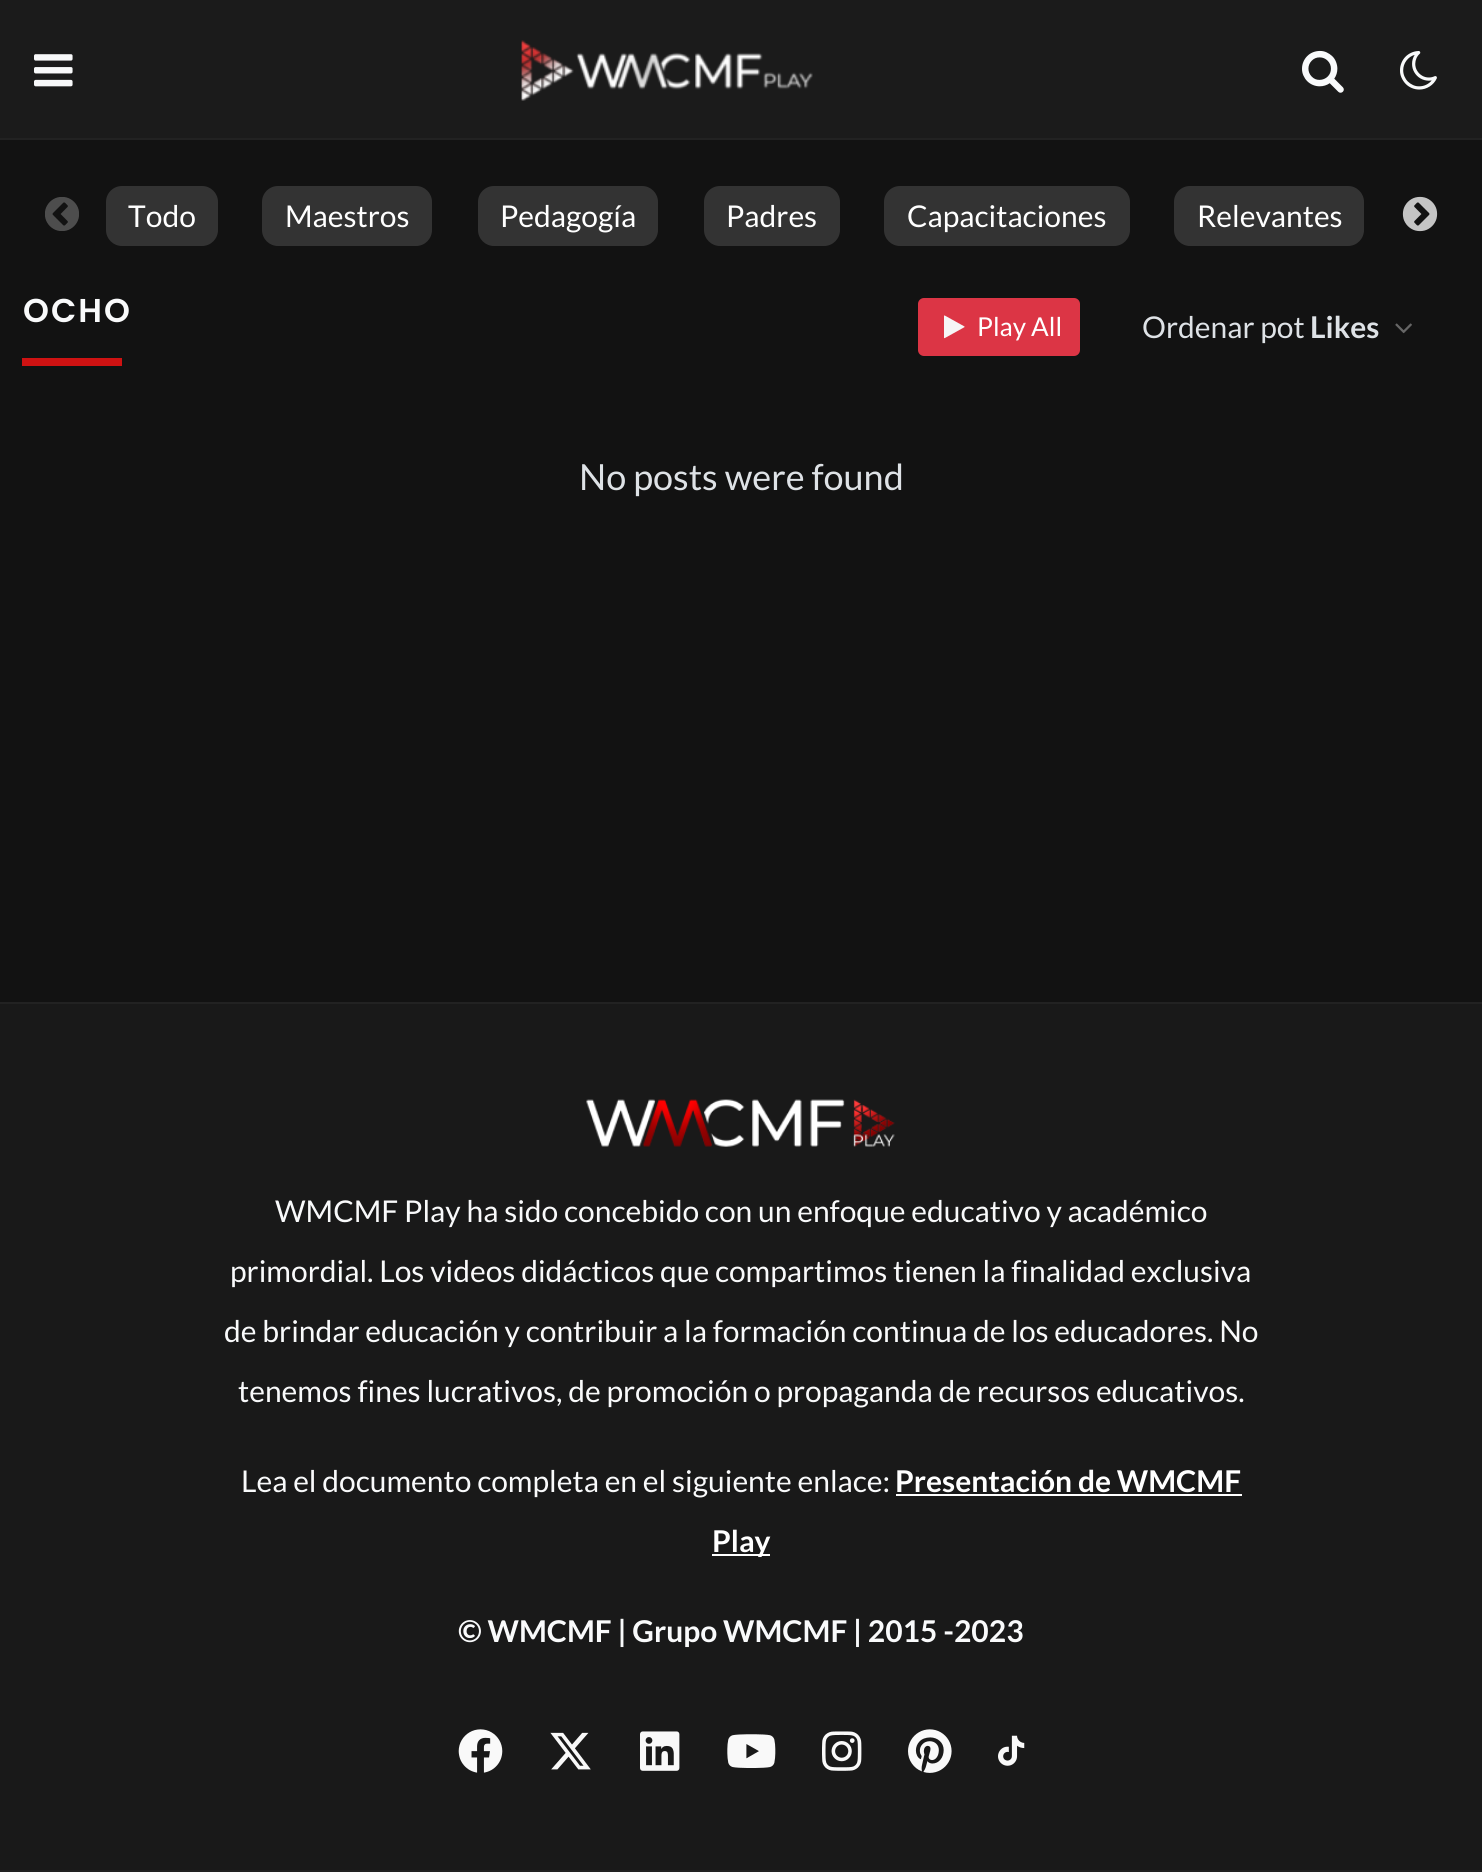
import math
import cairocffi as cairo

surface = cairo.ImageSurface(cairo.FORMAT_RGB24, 1482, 1872)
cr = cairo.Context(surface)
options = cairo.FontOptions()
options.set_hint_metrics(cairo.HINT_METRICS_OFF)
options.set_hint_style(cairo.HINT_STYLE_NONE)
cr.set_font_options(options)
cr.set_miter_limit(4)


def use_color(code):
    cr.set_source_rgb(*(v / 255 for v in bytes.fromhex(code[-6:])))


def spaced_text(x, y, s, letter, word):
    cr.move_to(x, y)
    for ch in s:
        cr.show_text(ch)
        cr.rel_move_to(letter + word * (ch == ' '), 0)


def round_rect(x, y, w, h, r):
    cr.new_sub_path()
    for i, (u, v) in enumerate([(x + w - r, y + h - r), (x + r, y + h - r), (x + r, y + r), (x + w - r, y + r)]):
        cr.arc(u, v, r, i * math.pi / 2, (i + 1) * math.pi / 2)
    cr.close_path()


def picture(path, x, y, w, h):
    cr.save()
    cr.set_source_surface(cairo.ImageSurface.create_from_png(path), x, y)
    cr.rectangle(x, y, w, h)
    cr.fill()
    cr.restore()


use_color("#121212")
cr.paint()
use_color("#1b1b1b")
cr.rectangle(0, 0, 1482, 138)
cr.fill()
use_color("#222222")
cr.rectangle(0, 138, 1482, 2)
cr.fill()
picture("img1.png", 34, 54, 39, 33)
picture("img2.png", 521, 40, 292, 61)
picture("img3.png", 1302, 50, 42, 43)
picture("img4.png", 1400, 51, 37, 39)
picture("img5.png", 45, 197, 34, 34)
use_color("#333333")
round_rect(106, 186, 112, 60, 16)
cr.fill()
cr.select_font_face("Lato")
cr.set_font_size(30)
use_color("#ffffff")
cr.move_to(128, 227)
cr.show_text("Todo")
use_color("#333333")
round_rect(262, 186, 170, 60, 16)
cr.fill()
use_color("#ffffff")
cr.move_to(285, 227)
cr.show_text("Maestros")
use_color("#333333")
round_rect(478, 186, 180, 60, 16)
cr.fill()
use_color("#ffffff")
cr.move_to(500, 227)
cr.show_text("Pedagogía")
use_color("#333333")
round_rect(704, 186, 136, 60, 16)
cr.fill()
use_color("#ffffff")
cr.move_to(726, 227)
cr.show_text("Padres")
use_color("#333333")
round_rect(884, 186, 246, 60, 16)
cr.fill()
use_color("#ffffff")
cr.move_to(907, 227)
cr.show_text("Capacitaciones")
use_color("#333333")
round_rect(1174, 186, 190, 60, 16)
cr.fill()
use_color("#ffffff")
cr.move_to(1197, 227)
cr.show_text("Relevantes")
picture("img6.png", 1402, 196, 36, 36)
cr.select_font_face("Poppins SemiBold")
cr.set_font_size(33)
use_color("#f9fafb")
spaced_text(23, 322, "OCHO", 2, 0)
use_color("#ce1212")
cr.rectangle(22, 358, 100, 8)
cr.fill()
use_color("#dc3545")
round_rect(919, 299, 160, 56, 5)
cr.fill_preserve()
cr.stroke()
picture("img7.png", 944, 315, 21, 24)
cr.select_font_face("Lato")
cr.set_font_size(26)
use_color("#ffffff")
cr.move_to(977, 336)
cr.show_text("Play All")
cr.set_font_size(30)
use_color("#dee2e6")
cr.move_to(1142, 338)
cr.show_text("Ordenar pot")
cr.select_font_face("Lato", cairo.FONT_SLANT_NORMAL, cairo.FONT_WEIGHT_BOLD)
cr.move_to(1310, 338)
cr.show_text("Likes")
picture("img8.png", 1395, 323, 17, 11)
cr.select_font_face("Lato")
cr.set_font_size(36)
cr.move_to(579, 490)
cr.show_text("No posts were found")
use_color("#191919")
cr.rectangle(0, 1004, 1482, 866)
cr.fill()
use_color("#222222")
cr.rectangle(0, 1002, 1482, 2)
cr.fill()
cr.rectangle(0, 1870, 1482, 2)
cr.fill()
picture("img9.png", 586, 1099, 309, 48)
cr.set_font_size(30)
use_color("#f9fafb")
cr.move_to(275, 1222)
cr.show_text("WMCMF Play ha sido concebido con un enfoque educativo y académico")
cr.move_to(230, 1282)
cr.show_text("primordial. Los videos didácticos que compartimos tienen la finalidad exclusiva")
cr.move_to(224, 1342)
cr.show_text("de brindar educación y contribuir a la formación continua de los educadores. No")
cr.move_to(238, 1402)
cr.show_text("tenemos fines lucrativos, de promoción o propaganda de recursos educativos.")
cr.move_to(241, 1492)
cr.show_text("Lea el documento completa en el siguiente enlace:")
cr.select_font_face("Lato", cairo.FONT_SLANT_NORMAL, cairo.FONT_WEIGHT_BOLD)
use_color("#ffffff")
cr.move_to(895, 1492)
cr.show_text("Presentación de WMCMF")
cr.rectangle(896, 1494, 346, 2)
cr.fill()
cr.rectangle(712, 1554, 58, 2)
cr.fill()
cr.move_to(712, 1552)
cr.show_text("Play")
use_color("#f9fafb")
cr.move_to(458, 1642)
cr.show_text("© WMCMF | Grupo WMCMF | 2015 -2023")
picture("img10.png", 458, 1729, 45, 44)
picture("img11.png", 550, 1732, 41, 38)
picture("img12.png", 640, 1731, 40, 40)
picture("img13.png", 727, 1734, 49, 34)
picture("img14.png", 822, 1731, 40, 40)
picture("img15.png", 908, 1729, 44, 44)
picture("img16.png", 998, 1735, 27, 31)
surface.write_to_png("result.png")
